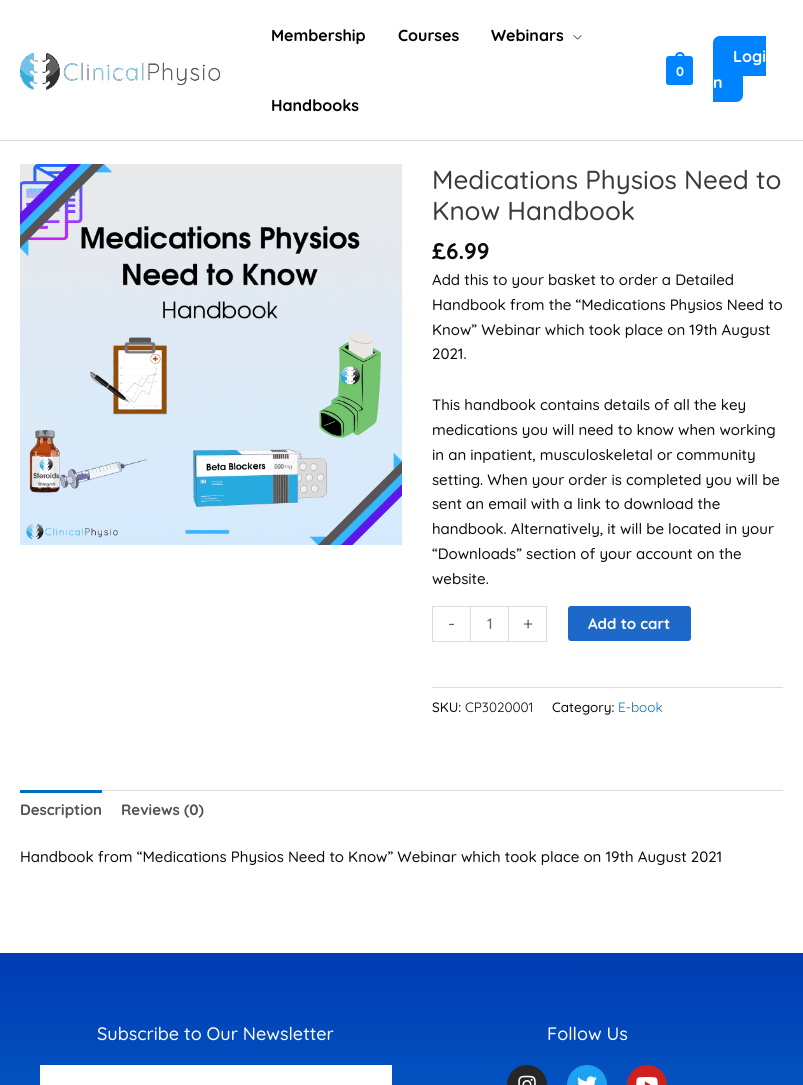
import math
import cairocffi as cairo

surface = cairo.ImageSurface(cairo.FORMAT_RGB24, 803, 1085)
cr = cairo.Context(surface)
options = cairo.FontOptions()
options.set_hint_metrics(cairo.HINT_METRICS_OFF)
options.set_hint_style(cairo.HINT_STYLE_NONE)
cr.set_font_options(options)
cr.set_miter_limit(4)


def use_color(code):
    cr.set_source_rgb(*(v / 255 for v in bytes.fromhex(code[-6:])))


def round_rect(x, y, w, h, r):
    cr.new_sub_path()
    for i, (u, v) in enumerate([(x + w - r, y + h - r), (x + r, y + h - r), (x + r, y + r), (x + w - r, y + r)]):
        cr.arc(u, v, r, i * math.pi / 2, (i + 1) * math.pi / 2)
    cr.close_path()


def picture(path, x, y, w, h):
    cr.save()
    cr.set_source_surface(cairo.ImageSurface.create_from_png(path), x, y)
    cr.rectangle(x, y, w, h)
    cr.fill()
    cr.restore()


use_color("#ffffff")
cr.paint()
use_color("#d6d6d6")
cr.rectangle(0, 140, 803, 1)
cr.fill()
picture("img1.png", 20, 53, 200, 37)
cr.select_font_face("Quicksand", cairo.FONT_SLANT_NORMAL, cairo.FONT_WEIGHT_BOLD)
cr.set_font_size(16)
use_color("#000000")
cr.move_to(271, 41)
cr.show_text("Membership")
cr.move_to(398, 41)
cr.show_text("Courses")
cr.move_to(491, 41)
cr.show_text("Webinars")
picture("img2.png", 573, 35, 9, 5)
cr.move_to(271, 111)
cr.show_text("Handbooks")
use_color("#0083fe")
round_rect(666, 56, 27, 29, 3)
cr.fill()
round_rect(667, 59, 25, 25, 2)
cr.fill_preserve()
cr.stroke()
cr.set_fill_rule(cairo.FILL_RULE_EVEN_ODD)
cr.new_path()
cr.move_to(680, 52)
cr.curve_to(685.5, 52, 685, 58, 685, 62)
cr.line_to(675, 62)
cr.curve_to(675, 58, 674, 52, 680, 52)
cr.close_path()
cr.move_to(680, 54)
cr.curve_to(684, 54, 683, 59.5, 683, 62)
cr.line_to(677, 62)
cr.curve_to(677, 59.5, 676, 54, 680, 54)
cr.close_path()
cr.fill()
cr.set_font_size(13)
use_color("#ffffff")
cr.move_to(676, 76)
cr.show_text("0")
use_color("#0083fe")
cr.new_path()
cr.move_to(720, 36)
cr.line_to(766, 36)
cr.line_to(766, 76)
cr.line_to(720, 76)
cr.curve_to(716, 76, 713, 73, 713, 69)
cr.line_to(713, 43)
cr.curve_to(713, 39, 716, 36, 720, 36)
cr.close_path()
cr.fill()
cr.new_path()
cr.move_to(713, 62)
cr.line_to(736, 62)
cr.curve_to(740, 62, 743, 65, 743, 69)
cr.line_to(743, 95)
cr.curve_to(743, 99, 740, 102, 736, 102)
cr.line_to(713, 102)
cr.close_path()
cr.fill()
cr.set_font_size(16)
use_color("#ffffff")
cr.move_to(733, 62)
cr.show_text("Logi")
cr.move_to(713, 88)
cr.show_text("n")
picture("img3.png", 20, 164, 382, 381)
cr.select_font_face("Quicksand Medium")
cr.set_font_size(26)
use_color("#3a3a3a")
cr.move_to(432, 189)
cr.show_text("Medications Physios Need to")
cr.move_to(432, 220)
cr.show_text("Know Handbook")
cr.select_font_face("Quicksand", cairo.FONT_SLANT_NORMAL, cairo.FONT_WEIGHT_BOLD)
cr.set_font_size(22.5)
use_color("#0a0a0a")
cr.move_to(432, 259)
cr.show_text("£6.99")
cr.select_font_face("Quicksand Medium")
cr.set_font_size(15)
cr.move_to(432, 285)
cr.show_text("Add this to your basket to order a Detailed")
cr.move_to(432, 310)
cr.show_text("Handbook from the “Medications Physios Need to")
cr.move_to(432, 335)
cr.show_text("Know” Webinar which took place on 19th August")
cr.move_to(432, 359)
cr.show_text("2021.")
cr.move_to(432, 410)
cr.show_text("This handbook contains details of all the key")
cr.move_to(432, 435)
cr.show_text("medications you will need to know when working")
cr.move_to(432, 460)
cr.show_text("in an inpatient, musculoskeletal or community")
cr.move_to(432, 485)
cr.show_text("setting. When your order is completed you will be")
cr.move_to(432, 509)
cr.show_text("sent an email with a link to download the")
cr.move_to(432, 534)
cr.show_text("handbook. Alternatively, it will be located in your")
cr.move_to(432, 559)
cr.show_text("“Downloads” section of your account on the")
cr.move_to(432, 584)
cr.show_text("website.")
use_color("#dddddd")
cr.rectangle(432, 606, 38, 1)
cr.fill()
cr.rectangle(432, 641, 38, 1)
cr.fill()
cr.rectangle(432, 606, 1, 36)
cr.fill()
cr.select_font_face("Quicksand")
cr.set_font_size(18)
use_color("#4b4f58")
cr.move_to(448, 630)
cr.show_text("-")
cr.rectangle(470.5, 606.5, 38, 35)
use_color("#dddddd")
cr.set_line_width(1)
cr.stroke()
cr.select_font_face("Quicksand Medium")
cr.set_font_size(15)
use_color("#666666")
cr.move_to(487, 629)
cr.show_text("1")
use_color("#dddddd")
cr.rectangle(509, 606, 38, 1)
cr.fill()
cr.rectangle(546, 606, 1, 36)
cr.fill()
cr.rectangle(509, 641, 38, 1)
cr.fill()
cr.select_font_face("Quicksand")
cr.set_font_size(18)
use_color("#4b4f58")
cr.move_to(523, 630)
cr.show_text("+")
use_color("#1e68c9")
round_rect(568, 606, 123, 35, 3)
cr.fill()
cr.select_font_face("Quicksand", cairo.FONT_SLANT_NORMAL, cairo.FONT_WEIGHT_BOLD)
cr.set_font_size(15)
use_color("#ffffff")
cr.move_to(588, 629)
cr.show_text("Add to cart")
use_color("#dddddd")
cr.rectangle(432, 687, 351, 1)
cr.fill()
cr.select_font_face("Quicksand Medium")
cr.set_font_size(13.5)
use_color("#0a0a0a")
cr.move_to(432, 712)
cr.show_text("SKU:")
cr.select_font_face("Quicksand")
cr.move_to(465, 712)
cr.show_text("CP3020001")
cr.select_font_face("Quicksand Medium")
cr.move_to(552, 712)
cr.show_text("Category:")
cr.select_font_face("Quicksand")
use_color("#0170b9")
cr.move_to(618, 712)
cr.show_text("E-book")
use_color("#dddddd")
cr.rectangle(102, 790, 681, 1)
cr.fill()
use_color("#0170b9")
cr.rectangle(20, 790, 82, 3)
cr.fill()
cr.select_font_face("Quicksand", cairo.FONT_SLANT_NORMAL, cairo.FONT_WEIGHT_BOLD)
cr.set_font_size(15)
use_color("#515151")
cr.move_to(20, 815)
cr.show_text("Description")
cr.move_to(121, 815)
cr.show_text("Reviews (0)")
cr.select_font_face("Quicksand Medium")
use_color("#0a0a0a")
cr.move_to(20, 862)
cr.show_text("Handbook from “Medications Physios Need to Know” Webinar which took place on 19th August 2021")
gradient = cairo.LinearGradient(402, 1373, 401, 953)
gradient.add_color_stop_rgba(0, 0.035, 0.518, 0.89, 1)
gradient.add_color_stop_rgba(1, 0, 0.231, 0.694, 1)
cr.set_source(gradient)
cr.rectangle(0, 953, 803, 132)
cr.fill()
cr.set_font_size(18)
use_color("#ffffff")
cr.move_to(97, 1040)
cr.show_text("Subscribe to Our Newsletter")
cr.rectangle(40, 1065, 352, 20)
cr.fill()
cr.move_to(547, 1040)
cr.show_text("Follow Us")
use_color("#262626")
cr.new_path()
cr.arc(527, 1085, 20, 0, 2 * math.pi)
cr.fill()
picture("img4.png", 518, 1075, 18, 10)
use_color("#1da1f2")
cr.arc(587, 1085, 20, 0, 2 * math.pi)
cr.fill()
picture("img5.png", 577, 1076, 20, 9)
use_color("#cd201f")
cr.arc(647, 1085, 20, 0, 2 * math.pi)
cr.fill()
picture("img6.png", 636, 1077, 22, 8)
surface.write_to_png("result.png")
